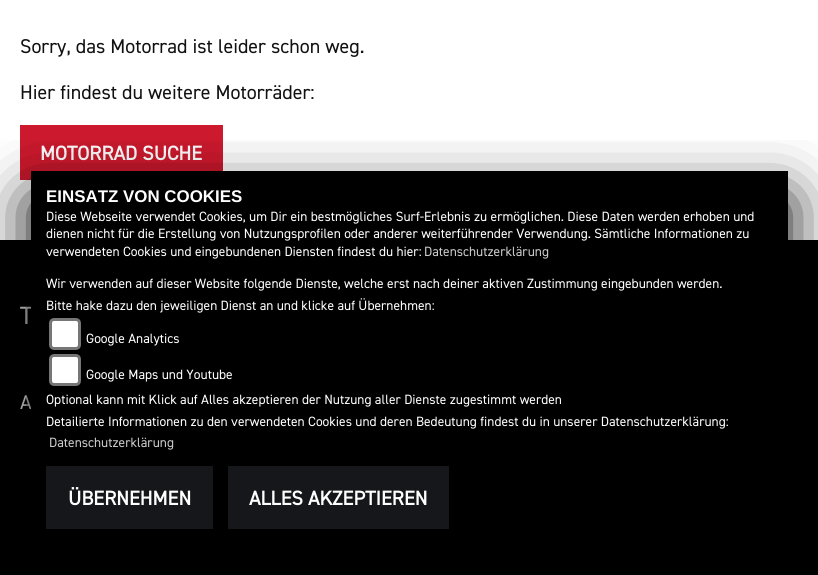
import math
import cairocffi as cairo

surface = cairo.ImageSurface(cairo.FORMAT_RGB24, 818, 575)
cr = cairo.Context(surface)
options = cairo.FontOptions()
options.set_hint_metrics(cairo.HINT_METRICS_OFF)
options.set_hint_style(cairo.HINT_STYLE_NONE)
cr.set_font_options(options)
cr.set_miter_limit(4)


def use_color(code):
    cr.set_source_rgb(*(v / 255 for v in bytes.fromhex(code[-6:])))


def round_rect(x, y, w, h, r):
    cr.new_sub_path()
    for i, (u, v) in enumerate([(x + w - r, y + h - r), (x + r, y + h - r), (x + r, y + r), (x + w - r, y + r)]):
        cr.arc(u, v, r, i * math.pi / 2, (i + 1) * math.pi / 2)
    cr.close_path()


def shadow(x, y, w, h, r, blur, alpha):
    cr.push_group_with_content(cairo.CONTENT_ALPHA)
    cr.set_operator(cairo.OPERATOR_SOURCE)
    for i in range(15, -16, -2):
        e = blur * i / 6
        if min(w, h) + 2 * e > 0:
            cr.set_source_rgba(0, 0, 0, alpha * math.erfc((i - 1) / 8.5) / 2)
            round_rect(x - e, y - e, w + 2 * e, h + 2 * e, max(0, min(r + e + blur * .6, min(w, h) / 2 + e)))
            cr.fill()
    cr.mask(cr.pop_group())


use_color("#ffffff")
cr.paint()
cr.select_font_face("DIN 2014")
cr.set_font_size(20)
use_color("#111111")
cr.move_to(20, 53)
cr.show_text("Sorry, das Motorrad ist leider schon weg.")
cr.move_to(20, 99)
cr.show_text("Hier findest du weitere Motorräder:")
use_color("#cd192d")
cr.rectangle(20, 125, 203, 55)
cr.fill()
cr.select_font_face("DIN 2014", cairo.FONT_SLANT_NORMAL, cairo.FONT_WEIGHT_BOLD)
use_color("#ffffff")
cr.move_to(40, 160)
cr.show_text("MOTORRAD SUCHE")
use_color("#000000")
cr.rectangle(0, 240, 818, 335)
cr.fill()
cr.select_font_face("DIN 2014")
cr.set_font_size(25)
use_color("#ffffff")
cr.move_to(20, 324)
cr.show_text("T")
cr.set_font_size(20)
cr.move_to(20, 409)
cr.show_text("A")
cr.save()
cr.rectangle(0, 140, 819, 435)
cr.clip()
use_color("#000000")
shadow(31, 199, 757, 372, 0, 31, 1)
cr.restore()
use_color("#000000")
cr.rectangle(31, 171, 757, 238)
cr.fill()
cr.select_font_face("Liberation Sans", cairo.FONT_SLANT_NORMAL, cairo.FONT_WEIGHT_BOLD)
cr.set_font_size(16.9)
use_color("#ffffff")
cr.move_to(46, 202)
cr.show_text("EINSATZ VON COOKIES")
cr.select_font_face("DIN 2014")
cr.set_font_size(13.5)
cr.move_to(46, 221)
cr.show_text("Diese Webseite verwendet Cookies, um Dir ein bestmögliches Surf-Erlebnis zu ermöglichen. Diese Daten werden erhoben und")
cr.move_to(46, 238)
cr.show_text("dienen nicht für die Erstellung von Nutzungsprofilen oder anderer weiterführender Verwendung. Sämtliche Informationen zu")
cr.move_to(46, 256)
cr.show_text("verwendeten Cookies und eingebundenen Diensten findest du hier:")
use_color("#cccccc")
cr.move_to(424, 256)
cr.show_text("Datenschutzerklärung")
use_color("#ffffff")
cr.move_to(46, 288)
cr.show_text("Wir verwenden auf dieser Website folgende Dienste, welche erst nach deiner aktiven Zustimmung eingebunden werden.")
cr.move_to(46, 310)
cr.show_text("Bitte hake dazu den jeweiligen Dienst an und klicke auf Übernehmen:")
round_rect(50.5, 319.5, 29, 29, 3.5)
cr.fill_preserve()
use_color("#767676")
cr.set_line_width(3)
cr.stroke()
use_color("#ffffff")
cr.move_to(86, 343)
cr.show_text("Google Analytics")
round_rect(50.5, 355.5, 29, 29, 3.5)
cr.fill_preserve()
use_color("#767676")
cr.stroke()
use_color("#ffffff")
cr.move_to(86, 379)
cr.show_text("Google Maps und Youtube")
cr.move_to(46, 404)
cr.show_text("Optional kann mit Klick auf Alles akzeptieren der Nutzung aller Dienste zugestimmt werden")
cr.move_to(46, 426)
cr.show_text("Detailierte Informationen zu den verwendeten Cookies und deren Bedeutung findest du in unserer Datenschutzerklärung:")
use_color("#cccccc")
cr.move_to(49, 447)
cr.show_text("Datenschutzerklärung")
use_color("#16171a")
cr.rectangle(46, 466, 167, 63)
cr.fill()
cr.select_font_face("DIN 2014", cairo.FONT_SLANT_NORMAL, cairo.FONT_WEIGHT_BOLD)
cr.set_font_size(20)
use_color("#ffffff")
cr.move_to(68, 505)
cr.show_text("ÜBERNEHMEN")
use_color("#16171a")
cr.rectangle(228, 466, 221, 63)
cr.fill()
use_color("#ffffff")
cr.move_to(249, 505)
cr.show_text("ALLES AKZEPTIEREN")
surface.write_to_png("result.png")
